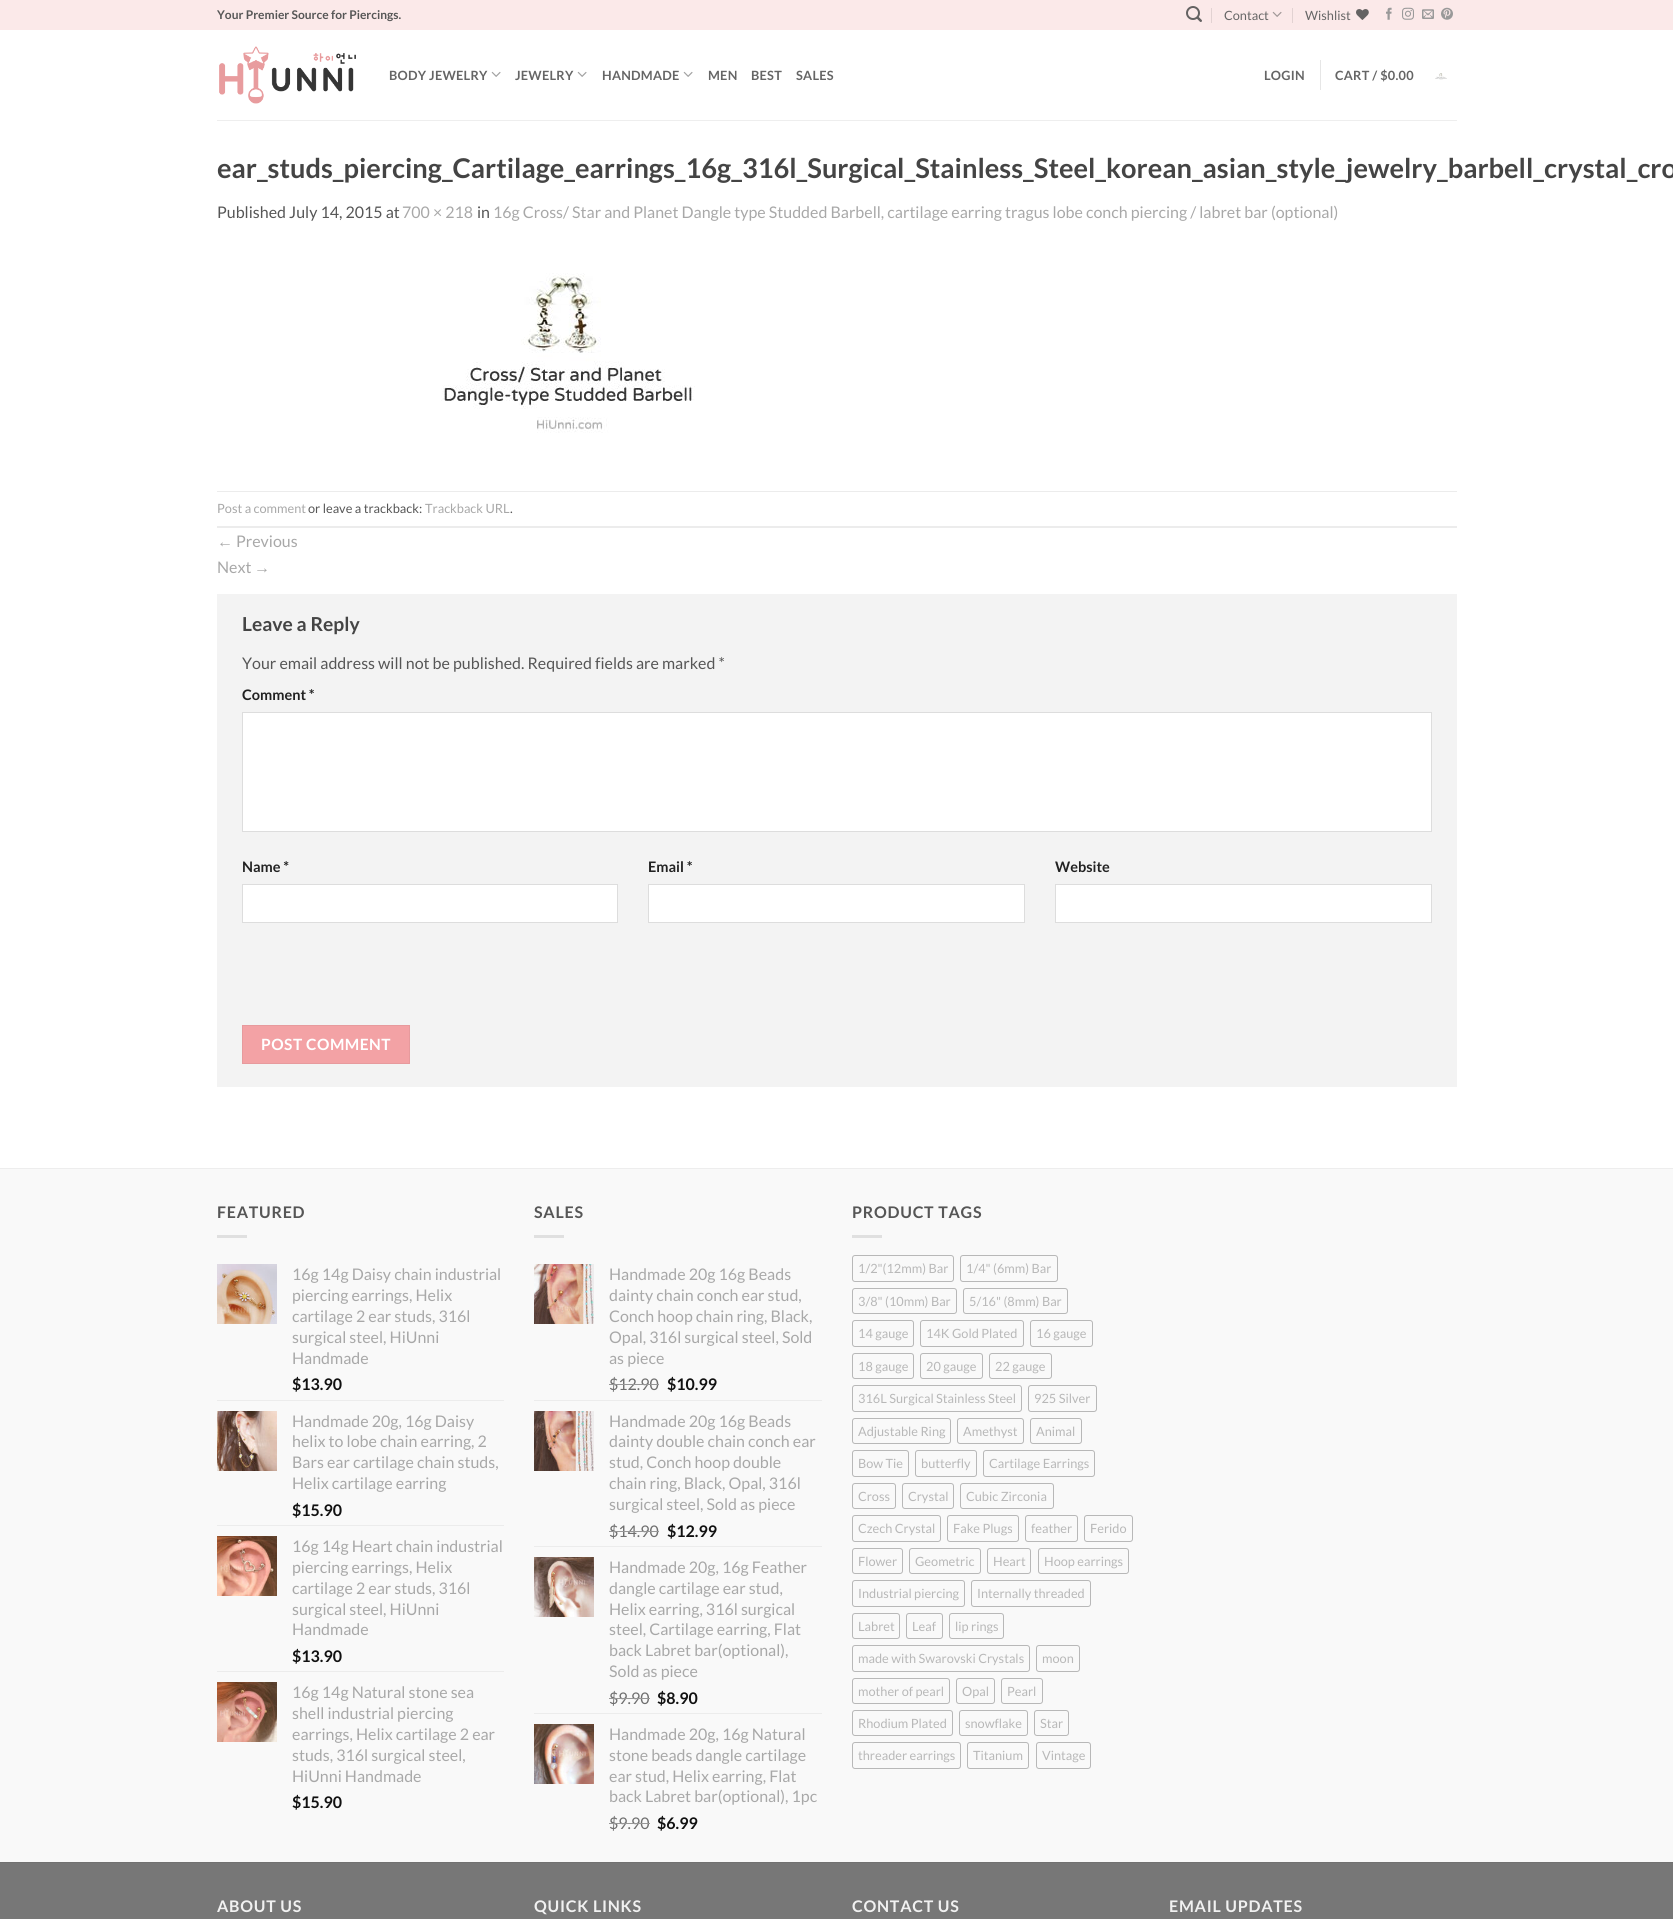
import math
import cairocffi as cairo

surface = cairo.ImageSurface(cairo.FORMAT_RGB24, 1673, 1919)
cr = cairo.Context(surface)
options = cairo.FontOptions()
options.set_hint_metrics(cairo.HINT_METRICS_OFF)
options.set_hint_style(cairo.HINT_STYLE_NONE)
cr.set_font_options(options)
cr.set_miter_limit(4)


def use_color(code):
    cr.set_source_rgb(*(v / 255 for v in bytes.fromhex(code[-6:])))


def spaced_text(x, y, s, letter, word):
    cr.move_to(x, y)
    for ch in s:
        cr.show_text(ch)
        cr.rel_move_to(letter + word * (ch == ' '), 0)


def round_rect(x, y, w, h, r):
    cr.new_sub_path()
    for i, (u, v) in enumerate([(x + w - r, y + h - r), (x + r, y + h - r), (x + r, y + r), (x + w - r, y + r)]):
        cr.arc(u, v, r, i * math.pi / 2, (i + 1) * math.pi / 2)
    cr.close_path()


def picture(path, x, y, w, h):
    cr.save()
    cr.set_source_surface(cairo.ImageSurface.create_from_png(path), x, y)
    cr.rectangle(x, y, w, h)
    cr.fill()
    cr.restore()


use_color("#ffffff")
cr.paint()
use_color("#fbe9e9")
cr.rectangle(0, 0, 1673, 30)
cr.fill()
cr.select_font_face("Lato", cairo.FONT_SLANT_NORMAL, cairo.FONT_WEIGHT_BOLD)
cr.set_font_size(12)
use_color("#565656")
cr.move_to(217, 19)
cr.show_text("Your Premier Source for Piercings.")
picture("img1.png", 1186, 6, 16, 16)
use_color("#e2d2d2")
cr.rectangle(1211, 8, 1, 15)
cr.fill()
cr.select_font_face("Lato")
cr.set_font_size(12.75)
use_color("#656565")
cr.move_to(1224, 20)
cr.show_text("Contact")
picture("img2.png", 1272, 11, 10, 6)
use_color("#e2d2d2")
cr.rectangle(1292, 8, 1, 15)
cr.fill()
use_color("#656565")
cr.move_to(1305, 20)
cr.show_text("Wishlist")
picture("img3.png", 1356, 9, 13, 11)
picture("img4.png", 1386, 7, 6, 13)
picture("img5.png", 1402, 7, 12, 13)
picture("img6.png", 1422, 9, 12, 10)
picture("img7.png", 1441, 7, 12, 13)
picture("img8.png", 219, 46, 137, 58)
cr.select_font_face("Lato", cairo.FONT_SLANT_NORMAL, cairo.FONT_WEIGHT_BOLD)
spaced_text(389, 80, "BODY JEWELRY", 0.25, 0)
picture("img9.png", 491, 71, 10, 6)
spaced_text(515, 80, "JEWELRY", 0.25, 0)
picture("img9.png", 577, 71, 10, 6)
spaced_text(602, 80, "HANDMADE", 0.25, 0)
picture("img9.png", 683, 71, 10, 6)
spaced_text(708, 80, "MEN", 0.25, 0)
spaced_text(751, 80, "BEST", 0.25, 0)
spaced_text(796, 80, "SALES", 0.25, 0)
spaced_text(1264, 80, "LOGIN", 0.25, 0)
use_color("#e6e6e6")
cr.rectangle(1320, 60, 1, 30)
cr.fill()
use_color("#656565")
spaced_text(1335, 80, "CART / $0.00", 0.25, 0)
picture("img10.png", 1435, 73, 12, 7)
use_color("#eeeeee")
cr.rectangle(217, 120, 1240, 1)
cr.fill()
cr.set_font_size(27.2)
use_color("#444444")
cr.move_to(217, 178)
cr.show_text("ear_studs_piercing_Cartilage_earrings_16g_316l_Surgical_Stainless_Steel_korean_asian_style_jewelry_barbell_crystal_cro")
cr.select_font_face("Lato")
cr.set_font_size(16)
use_color("#565656")
cr.move_to(217, 218)
cr.show_text("Published July 14, 2015 at")
use_color("#a8a8a8")
cr.move_to(402, 218)
cr.show_text("700 × 218")
use_color("#565656")
cr.move_to(477, 218)
cr.show_text("in")
use_color("#a8a8a8")
cr.move_to(493, 218)
cr.show_text("16g Cross/ Star and Planet Dangle type Studded Barbell, cartilage earring tragus lobe conch piercing / labret bar (optional)")
picture("img11.png", 441, 273, 254, 160)
use_color("#ececec")
cr.rectangle(217, 491, 1240, 1)
cr.fill()
cr.rectangle(217, 526, 1240, 2)
cr.fill()
cr.set_font_size(12.75)
use_color("#a8a8a8")
cr.move_to(217, 513)
cr.show_text("Post a comment")
use_color("#565656")
cr.move_to(308, 513)
cr.show_text("or leave a trackback:")
use_color("#a8a8a8")
cr.move_to(425, 513)
cr.show_text("Trackback URL")
use_color("#565656")
cr.move_to(510, 513)
cr.show_text(".")
cr.select_font_face("Liberation Sans")
cr.set_font_size(16)
use_color("#a8a8a8")
cr.move_to(217, 547)
cr.show_text("←")
cr.select_font_face("Lato")
cr.move_to(236, 547)
cr.show_text("Previous")
cr.move_to(217, 573)
cr.show_text("Next")
cr.select_font_face("Liberation Sans")
cr.move_to(254, 573)
cr.show_text("→")
use_color("#f3f3f3")
cr.rectangle(217, 594, 1240, 493)
cr.fill()
cr.select_font_face("Lato", cairo.FONT_SLANT_NORMAL, cairo.FONT_WEIGHT_BOLD)
cr.set_font_size(19.25)
use_color("#444444")
cr.move_to(242, 631)
cr.show_text("Leave a Reply")
cr.select_font_face("Lato")
cr.set_font_size(16)
use_color("#565656")
cr.move_to(242, 669)
cr.show_text("Your email address will not be published. Required fields are marked *")
cr.select_font_face("Lato", cairo.FONT_SLANT_NORMAL, cairo.FONT_WEIGHT_BOLD)
cr.set_font_size(14.5)
use_color("#222222")
cr.move_to(242, 700)
cr.show_text("Comment *")
use_color("#ffffff")
cr.rectangle(242.5, 712.5, 1189, 119)
cr.fill_preserve()
use_color("#dddddd")
cr.set_line_width(1)
cr.stroke()
use_color("#222222")
cr.move_to(242, 872)
cr.show_text("Name *")
use_color("#ffffff")
cr.rectangle(242.5, 884.5, 375, 38)
cr.fill_preserve()
use_color("#dddddd")
cr.stroke()
use_color("#222222")
cr.move_to(648, 872)
cr.show_text("Email *")
use_color("#ffffff")
cr.rectangle(648.5, 884.5, 376, 38)
cr.fill_preserve()
use_color("#dddddd")
cr.stroke()
use_color("#222222")
cr.move_to(1055, 872)
cr.show_text("Website")
use_color("#ffffff")
cr.rectangle(1055.5, 884.5, 376, 38)
cr.fill_preserve()
use_color("#dddddd")
cr.stroke()
use_color("#f3a2a5")
cr.rectangle(242.5, 1025.5, 167, 38)
cr.fill_preserve()
use_color("#e79a9d")
cr.stroke()
cr.set_font_size(15.5)
use_color("#ffffff")
spaced_text(261, 1050, "POST COMMENT", 0.5, 0)
use_color("#f9f9f9")
cr.rectangle(0, 1169, 1673, 693)
cr.fill()
use_color("#ededed")
cr.rectangle(0, 1168, 1673, 1)
cr.fill()
cr.set_font_size(16)
use_color("#565656")
spaced_text(217, 1218, "FEATURED", 0.75, 0)
use_color("#e0e0e0")
cr.rectangle(217, 1235, 30, 3)
cr.fill()
picture("img12.png", 217, 1264, 60, 60)
cr.select_font_face("Lato")
use_color("#a8a8a8")
cr.move_to(292, 1280)
cr.show_text("16g 14g Daisy chain industrial")
cr.move_to(292, 1301)
cr.show_text("piercing earrings, Helix")
cr.move_to(292, 1322)
cr.show_text("cartilage 2 ear studs, 316l")
cr.move_to(292, 1343)
cr.show_text("surgical steel, HiUnni")
cr.move_to(292, 1364)
cr.show_text("Handmade")
cr.select_font_face("Lato", cairo.FONT_SLANT_NORMAL, cairo.FONT_WEIGHT_BOLD)
use_color("#111111")
cr.move_to(292, 1390)
cr.show_text("$13.90")
use_color("#ececec")
cr.rectangle(217, 1400, 287, 1)
cr.fill()
picture("img13.png", 217, 1411, 60, 60)
cr.select_font_face("Lato")
use_color("#a8a8a8")
cr.move_to(292, 1427)
cr.show_text("Handmade 20g, 16g Daisy")
cr.move_to(292, 1447)
cr.show_text("helix to lobe chain earring, 2")
cr.move_to(292, 1468)
cr.show_text("Bars ear cartilage chain studs,")
cr.move_to(292, 1489)
cr.show_text("Helix cartilage earring")
cr.select_font_face("Lato", cairo.FONT_SLANT_NORMAL, cairo.FONT_WEIGHT_BOLD)
use_color("#111111")
cr.move_to(292, 1516)
cr.show_text("$15.90")
use_color("#ececec")
cr.rectangle(217, 1525, 287, 1)
cr.fill()
picture("img14.png", 217, 1536, 60, 60)
cr.select_font_face("Lato")
use_color("#a8a8a8")
cr.move_to(292, 1552)
cr.show_text("16g 14g Heart chain industrial")
cr.move_to(292, 1573)
cr.show_text("piercing earrings, Helix")
cr.move_to(292, 1594)
cr.show_text("cartilage 2 ear studs, 316l")
cr.move_to(292, 1615)
cr.show_text("surgical steel, HiUnni")
cr.move_to(292, 1635)
cr.show_text("Handmade")
cr.select_font_face("Lato", cairo.FONT_SLANT_NORMAL, cairo.FONT_WEIGHT_BOLD)
use_color("#111111")
cr.move_to(292, 1662)
cr.show_text("$13.90")
use_color("#ececec")
cr.rectangle(217, 1671, 287, 1)
cr.fill()
picture("img15.png", 217, 1682, 60, 60)
cr.select_font_face("Lato")
use_color("#a8a8a8")
cr.move_to(292, 1698)
cr.show_text("16g 14g Natural stone sea")
cr.move_to(292, 1719)
cr.show_text("shell industrial piercing")
cr.move_to(292, 1740)
cr.show_text("earrings, Helix cartilage 2 ear")
cr.move_to(292, 1761)
cr.show_text("studs, 316l surgical steel,")
cr.move_to(292, 1782)
cr.show_text("HiUnni Handmade")
cr.select_font_face("Lato", cairo.FONT_SLANT_NORMAL, cairo.FONT_WEIGHT_BOLD)
use_color("#111111")
cr.move_to(292, 1808)
cr.show_text("$15.90")
use_color("#565656")
spaced_text(534, 1218, "SALES", 0.75, 0)
use_color("#e0e0e0")
cr.rectangle(534, 1235, 30, 3)
cr.fill()
picture("img16.png", 534, 1264, 60, 60)
cr.select_font_face("Lato")
use_color("#a8a8a8")
cr.move_to(609, 1280)
cr.show_text("Handmade 20g 16g Beads")
cr.move_to(609, 1301)
cr.show_text("dainty chain conch ear stud,")
cr.move_to(609, 1322)
cr.show_text("Conch hoop chain ring, Black,")
cr.move_to(609, 1343)
cr.show_text("Opal, 316l surgical steel, Sold")
cr.move_to(609, 1364)
cr.show_text("as piece")
use_color("#6e6e6e")
cr.move_to(609, 1390)
cr.show_text("$12.90")
use_color("#979797")
cr.rectangle(609, 1384, 50, 1)
cr.fill()
cr.select_font_face("Lato", cairo.FONT_SLANT_NORMAL, cairo.FONT_WEIGHT_BOLD)
use_color("#111111")
cr.move_to(667, 1390)
cr.show_text("$10.99")
use_color("#ececec")
cr.rectangle(534, 1400, 288, 1)
cr.fill()
picture("img17.png", 534, 1411, 60, 60)
cr.select_font_face("Lato")
use_color("#a8a8a8")
cr.move_to(609, 1427)
cr.show_text("Handmade 20g 16g Beads")
cr.move_to(609, 1447)
cr.show_text("dainty double chain conch ear")
cr.move_to(609, 1468)
cr.show_text("stud, Conch hoop double")
cr.move_to(609, 1489)
cr.show_text("chain ring, Black, Opal, 316l")
cr.move_to(609, 1510)
cr.show_text("surgical steel, Sold as piece")
use_color("#6e6e6e")
cr.move_to(609, 1537)
cr.show_text("$14.90")
use_color("#979797")
cr.rectangle(609, 1531, 50, 1)
cr.fill()
cr.select_font_face("Lato", cairo.FONT_SLANT_NORMAL, cairo.FONT_WEIGHT_BOLD)
use_color("#111111")
cr.move_to(667, 1537)
cr.show_text("$12.99")
use_color("#ececec")
cr.rectangle(534, 1546, 288, 1)
cr.fill()
picture("img18.png", 534, 1557, 60, 60)
cr.select_font_face("Lato")
use_color("#a8a8a8")
cr.move_to(609, 1573)
cr.show_text("Handmade 20g, 16g Feather")
cr.move_to(609, 1594)
cr.show_text("dangle cartilage ear stud,")
cr.move_to(609, 1615)
cr.show_text("Helix earring, 316l surgical")
cr.move_to(609, 1635)
cr.show_text("steel, Cartilage earring, Flat")
cr.move_to(609, 1656)
cr.show_text("back Labret bar(optional),")
cr.move_to(609, 1677)
cr.show_text("Sold as piece")
use_color("#6e6e6e")
cr.move_to(609, 1704)
cr.show_text("$9.90")
use_color("#979797")
cr.rectangle(609, 1698, 41, 1)
cr.fill()
cr.select_font_face("Lato", cairo.FONT_SLANT_NORMAL, cairo.FONT_WEIGHT_BOLD)
use_color("#111111")
cr.move_to(657, 1704)
cr.show_text("$8.90")
use_color("#ececec")
cr.rectangle(534, 1713, 288, 1)
cr.fill()
picture("img19.png", 534, 1724, 60, 60)
cr.select_font_face("Lato")
use_color("#a8a8a8")
cr.move_to(609, 1740)
cr.show_text("Handmade 20g, 16g Natural")
cr.move_to(609, 1761)
cr.show_text("stone beads dangle cartilage")
cr.move_to(609, 1782)
cr.show_text("ear stud, Helix earring, Flat")
cr.move_to(609, 1802)
cr.show_text("back Labret bar(optional), 1pc")
use_color("#6e6e6e")
cr.move_to(609, 1829)
cr.show_text("$9.90")
use_color("#979797")
cr.rectangle(609, 1823, 41, 1)
cr.fill()
cr.select_font_face("Lato", cairo.FONT_SLANT_NORMAL, cairo.FONT_WEIGHT_BOLD)
use_color("#111111")
cr.move_to(657, 1829)
cr.show_text("$6.99")
use_color("#565656")
spaced_text(852, 1218, "PRODUCT TAGS", 0.75, 0)
use_color("#e0e0e0")
cr.rectangle(852, 1235, 30, 3)
cr.fill()
round_rect(852.5, 1255.5, 101, 26, 2.5)
use_color("#b8b8b8")
cr.stroke()
cr.select_font_face("Lato")
cr.set_font_size(12.75)
cr.move_to(858, 1273)
cr.show_text("1/2\"(12mm) Bar")
round_rect(960.5, 1255.5, 97, 26, 2.5)
cr.stroke()
cr.move_to(966, 1273)
cr.show_text("1/4\" (6mm) Bar")
round_rect(852.5, 1288.5, 104, 25, 2.5)
cr.stroke()
cr.move_to(858, 1306)
cr.show_text("3/8\" (10mm) Bar")
round_rect(963.5, 1288.5, 104, 25, 2.5)
cr.stroke()
cr.move_to(969, 1306)
cr.show_text("5/16\" (8mm) Bar")
round_rect(852.5, 1320.5, 61, 26, 2.5)
cr.stroke()
cr.move_to(858, 1338)
cr.show_text("14 gauge")
round_rect(920.5, 1320.5, 103, 26, 2.5)
cr.stroke()
cr.move_to(926, 1338)
cr.show_text("14K Gold Plated")
round_rect(1030.5, 1320.5, 62, 26, 2.5)
cr.stroke()
cr.move_to(1036, 1338)
cr.show_text("16 gauge")
round_rect(852.5, 1353.5, 61, 25, 2.5)
cr.stroke()
cr.move_to(858, 1371)
cr.show_text("18 gauge")
round_rect(920.5, 1353.5, 62, 25, 2.5)
cr.stroke()
cr.move_to(926, 1371)
cr.show_text("20 gauge")
round_rect(989.5, 1353.5, 62, 25, 2.5)
cr.stroke()
cr.move_to(995, 1371)
cr.show_text("22 gauge")
round_rect(852.5, 1385.5, 169, 26, 2.5)
cr.stroke()
cr.move_to(858, 1403)
cr.show_text("316L Surgical Stainless Steel")
round_rect(1028.5, 1385.5, 68, 26, 2.5)
cr.stroke()
cr.move_to(1034, 1403)
cr.show_text("925 Silver")
round_rect(852.5, 1418.5, 98, 25, 2.5)
cr.stroke()
cr.move_to(858, 1436)
cr.show_text("Adjustable Ring")
round_rect(957.5, 1418.5, 66, 25, 2.5)
cr.stroke()
cr.move_to(963, 1436)
cr.show_text("Amethyst")
round_rect(1030.5, 1418.5, 51, 25, 2.5)
cr.stroke()
cr.move_to(1036, 1436)
cr.show_text("Animal")
round_rect(852.5, 1450.5, 56, 26, 2.5)
cr.stroke()
cr.move_to(858, 1468)
cr.show_text("Bow Tie")
round_rect(915.5, 1450.5, 61, 26, 2.5)
cr.stroke()
cr.move_to(921, 1468)
cr.show_text("butterfly")
round_rect(983.5, 1450.5, 111, 26, 2.5)
cr.stroke()
cr.move_to(989, 1468)
cr.show_text("Cartilage Earrings")
round_rect(852.5, 1483.5, 43, 25, 2.5)
cr.stroke()
cr.move_to(858, 1501)
cr.show_text("Cross")
round_rect(902.5, 1483.5, 51, 25, 2.5)
cr.stroke()
cr.move_to(908, 1501)
cr.show_text("Crystal")
round_rect(960.5, 1483.5, 93, 25, 2.5)
cr.stroke()
cr.move_to(966, 1501)
cr.show_text("Cubic Zirconia")
round_rect(852.5, 1515.5, 88, 26, 2.5)
cr.stroke()
cr.move_to(858, 1533)
cr.show_text("Czech Crystal")
round_rect(947.5, 1515.5, 71, 26, 2.5)
cr.stroke()
cr.move_to(953, 1533)
cr.show_text("Fake Plugs")
round_rect(1025.5, 1515.5, 52, 26, 2.5)
cr.stroke()
cr.move_to(1031, 1533)
cr.show_text("feather")
round_rect(1084.5, 1515.5, 48, 26, 2.5)
cr.stroke()
cr.move_to(1090, 1533)
cr.show_text("Ferido")
round_rect(852.5, 1548.5, 50, 25, 2.5)
cr.stroke()
cr.move_to(858, 1566)
cr.show_text("Flower")
round_rect(909.5, 1548.5, 71, 25, 2.5)
cr.stroke()
cr.move_to(915, 1566)
cr.show_text("Geometric")
round_rect(987.5, 1548.5, 43, 25, 2.5)
cr.stroke()
cr.move_to(993, 1566)
cr.show_text("Heart")
round_rect(1038.5, 1548.5, 90, 25, 2.5)
cr.stroke()
cr.move_to(1044, 1566)
cr.show_text("Hoop earrings")
round_rect(852.5, 1580.5, 112, 26, 2.5)
cr.stroke()
cr.move_to(858, 1598)
cr.show_text("Industrial piercing")
round_rect(971.5, 1580.5, 119, 26, 2.5)
cr.stroke()
cr.move_to(977, 1598)
cr.show_text("Internally threaded")
round_rect(852.5, 1613.5, 47, 25, 2.5)
cr.stroke()
cr.move_to(858, 1631)
cr.show_text("Labret")
round_rect(906.5, 1613.5, 36, 25, 2.5)
cr.stroke()
cr.move_to(912, 1631)
cr.show_text("Leaf")
round_rect(949.5, 1613.5, 54, 25, 2.5)
cr.stroke()
cr.move_to(955, 1631)
cr.show_text("lip rings")
round_rect(852.5, 1645.5, 177, 26, 2.5)
cr.stroke()
cr.move_to(858, 1663)
cr.show_text("made with Swarovski Crystals")
round_rect(1036.5, 1645.5, 43, 26, 2.5)
cr.stroke()
cr.move_to(1042, 1663)
cr.show_text("moon")
round_rect(852.5, 1678.5, 97, 25, 2.5)
cr.stroke()
cr.move_to(858, 1696)
cr.show_text("mother of pearl")
round_rect(956.5, 1678.5, 38, 25, 2.5)
cr.stroke()
cr.move_to(962, 1696)
cr.show_text("Opal")
round_rect(1001.5, 1678.5, 41, 25, 2.5)
cr.stroke()
cr.move_to(1007, 1696)
cr.show_text("Pearl")
round_rect(852.5, 1710.5, 100, 25, 2.5)
cr.stroke()
cr.move_to(858, 1728)
cr.show_text("Rhodium Plated")
round_rect(959.5, 1710.5, 68, 25, 2.5)
cr.stroke()
cr.move_to(965, 1728)
cr.show_text("snowflake")
round_rect(1034.5, 1710.5, 34, 25, 2.5)
cr.stroke()
cr.move_to(1040, 1728)
cr.show_text("Star")
round_rect(852.5, 1742.5, 108, 26, 2.5)
cr.stroke()
cr.move_to(858, 1760)
cr.show_text("threader earrings")
round_rect(967.5, 1742.5, 61, 26, 2.5)
cr.stroke()
cr.move_to(973, 1760)
cr.show_text("Titanium")
round_rect(1036.5, 1742.5, 54, 26, 2.5)
cr.stroke()
cr.move_to(1042, 1760)
cr.show_text("Vintage")
use_color("#777777")
cr.rectangle(0, 1863, 1673, 56)
cr.fill()
use_color("#717171")
cr.rectangle(0, 1862, 1673, 1)
cr.fill()
cr.select_font_face("Lato", cairo.FONT_SLANT_NORMAL, cairo.FONT_WEIGHT_BOLD)
cr.set_font_size(16)
use_color("#f1f1f1")
spaced_text(217, 1912, "ABOUT US", 0.75, 0)
spaced_text(534, 1912, "QUICK LINKS", 0.75, 0)
spaced_text(852, 1912, "CONTACT US", 0.75, 0)
spaced_text(1169, 1912, "EMAIL UPDATES", 0.75, 0)
surface.write_to_png("result.png")
